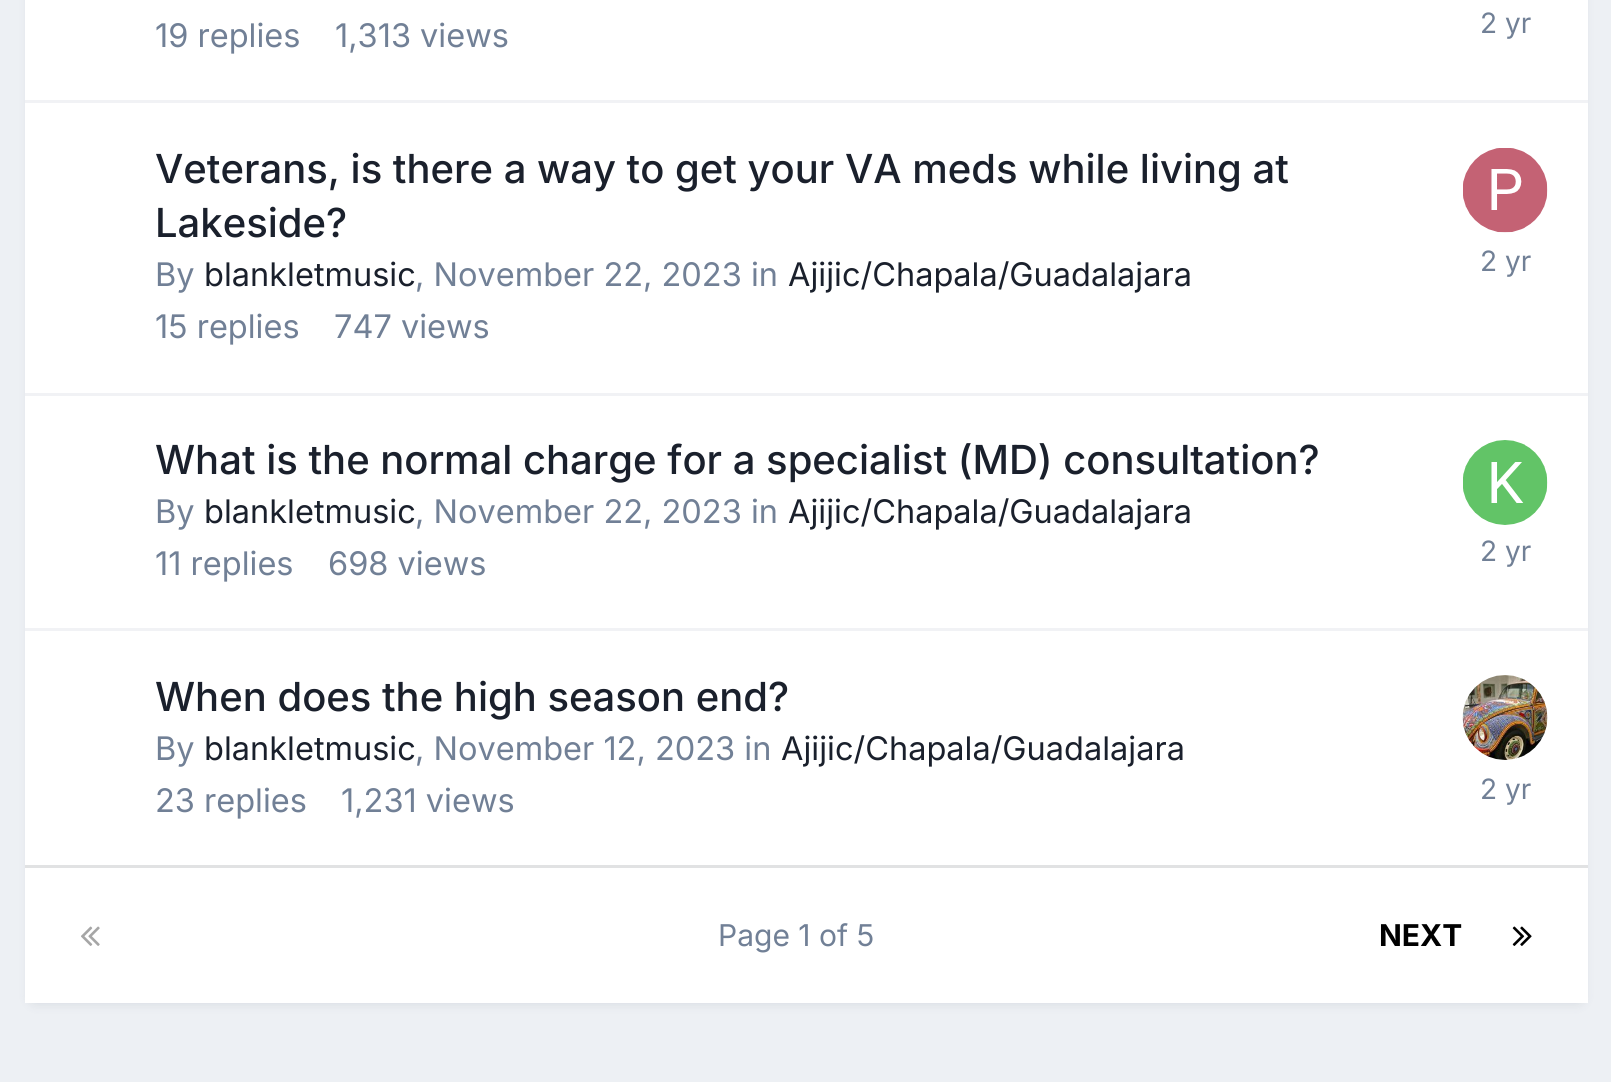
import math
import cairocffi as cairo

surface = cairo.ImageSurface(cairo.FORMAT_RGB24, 1611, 1082)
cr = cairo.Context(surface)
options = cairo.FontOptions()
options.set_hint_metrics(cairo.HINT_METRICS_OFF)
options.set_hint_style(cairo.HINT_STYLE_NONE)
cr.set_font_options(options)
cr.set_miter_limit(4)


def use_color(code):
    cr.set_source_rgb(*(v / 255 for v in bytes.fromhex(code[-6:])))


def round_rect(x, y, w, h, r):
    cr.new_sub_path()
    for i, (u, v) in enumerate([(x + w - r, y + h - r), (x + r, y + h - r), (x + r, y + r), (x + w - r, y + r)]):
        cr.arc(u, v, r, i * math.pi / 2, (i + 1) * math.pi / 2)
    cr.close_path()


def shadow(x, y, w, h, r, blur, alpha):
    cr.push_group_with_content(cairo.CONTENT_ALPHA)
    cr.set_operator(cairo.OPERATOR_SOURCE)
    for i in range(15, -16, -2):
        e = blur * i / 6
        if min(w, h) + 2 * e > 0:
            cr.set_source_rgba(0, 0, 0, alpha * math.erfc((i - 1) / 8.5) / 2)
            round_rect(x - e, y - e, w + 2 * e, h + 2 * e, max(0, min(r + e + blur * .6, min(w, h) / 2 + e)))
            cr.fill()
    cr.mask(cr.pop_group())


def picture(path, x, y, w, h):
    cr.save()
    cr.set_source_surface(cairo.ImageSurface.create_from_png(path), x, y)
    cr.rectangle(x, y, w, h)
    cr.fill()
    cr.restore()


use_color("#edf0f4")
cr.paint()
use_color("#2d3748")
shadow(28, -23, 1557, 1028, 8, 5, 0.1)
use_color("#ffffff")
cr.rectangle(25, 0, 1563, 865)
cr.fill()
use_color("#f1f2f5")
cr.rectangle(25, 100, 1563, 3)
cr.fill()
cr.select_font_face("Inter")
cr.set_font_size(32.5)
use_color("#718096")
cr.move_to(155, 47)
cr.show_text("19 replies")
cr.move_to(335, 47)
cr.show_text("1,313 views")
cr.set_font_size(28)
cr.move_to(1480, 33)
cr.show_text("2 yr")
use_color("#f1f2f5")
cr.rectangle(25, 393, 1563, 3)
cr.fill()
cr.select_font_face("Inter Medium")
cr.set_font_size(40)
use_color("#1a202c")
cr.move_to(155, 183)
cr.show_text("Veterans, is there a way to get your VA meds while living at")
cr.move_to(155, 237)
cr.show_text("Lakeside?")
cr.select_font_face("Inter")
cr.set_font_size(32.5)
use_color("#718096")
cr.move_to(155, 286)
cr.show_text("By")
use_color("#1a202c")
cr.move_to(204, 286)
cr.show_text("blankletmusic")
use_color("#718096")
cr.move_to(415, 286)
cr.show_text(", November 22, 2023 in")
use_color("#1a202c")
cr.move_to(788, 286)
cr.show_text("Ajijic/Chapala/Guadalajara")
picture("img1.png", 1463, 148, 85, 85)
cr.set_font_size(28)
use_color("#718096")
cr.move_to(1480, 271)
cr.show_text("2 yr")
cr.set_font_size(32.5)
cr.move_to(155, 338)
cr.show_text("15 replies")
cr.move_to(334, 338)
cr.show_text("747 views")
use_color("#f1f2f5")
cr.rectangle(25, 628, 1563, 3)
cr.fill()
cr.select_font_face("Inter Medium")
cr.set_font_size(40)
use_color("#1a202c")
cr.move_to(155, 474)
cr.show_text("What is the normal charge for a specialist (MD) consultation?")
cr.select_font_face("Inter")
cr.set_font_size(32.5)
use_color("#718096")
cr.move_to(155, 523)
cr.show_text("By")
use_color("#1a202c")
cr.move_to(204, 523)
cr.show_text("blankletmusic")
use_color("#718096")
cr.move_to(415, 523)
cr.show_text(", November 22, 2023 in")
use_color("#1a202c")
cr.move_to(788, 523)
cr.show_text("Ajijic/Chapala/Guadalajara")
use_color("#718096")
cr.move_to(155, 575)
cr.show_text("11 replies")
cr.move_to(328, 575)
cr.show_text("698 views")
picture("img2.png", 1463, 440, 85, 85)
cr.set_font_size(28)
cr.move_to(1480, 561)
cr.show_text("2 yr")
cr.select_font_face("Inter Medium")
cr.set_font_size(40)
use_color("#1a202c")
cr.move_to(155, 711)
cr.show_text("When does the high season end?")
cr.select_font_face("Inter")
cr.set_font_size(32.5)
use_color("#718096")
cr.move_to(155, 760)
cr.show_text("By")
use_color("#1a202c")
cr.move_to(204, 760)
cr.show_text("blankletmusic")
use_color("#718096")
cr.move_to(415, 760)
cr.show_text(", November 12, 2023 in")
use_color("#1a202c")
cr.move_to(781, 760)
cr.show_text("Ajijic/Chapala/Guadalajara")
use_color("#718096")
cr.move_to(155, 812)
cr.show_text("23 replies")
cr.move_to(341, 812)
cr.show_text("1,231 views")
picture("img3.png", 1462, 675, 86, 85)
cr.set_font_size(28)
cr.move_to(1480, 799)
cr.show_text("2 yr")
use_color("#ffffff")
cr.rectangle(25, 868, 1563, 135)
cr.fill()
use_color("#e1e2e3")
cr.rectangle(25, 865, 1563, 3)
cr.fill()
picture("img4.png", 81, 926, 19, 20)
cr.set_font_size(30)
use_color("#718096")
cr.move_to(718, 946)
cr.show_text("Page 1 of 5")
cr.select_font_face("Inter", cairo.FONT_SLANT_NORMAL, cairo.FONT_WEIGHT_BOLD)
use_color("#000000")
cr.move_to(1379, 946)
cr.show_text("NEXT")
picture("img5.png", 1512, 926, 20, 20)
surface.write_to_png("result.png")
